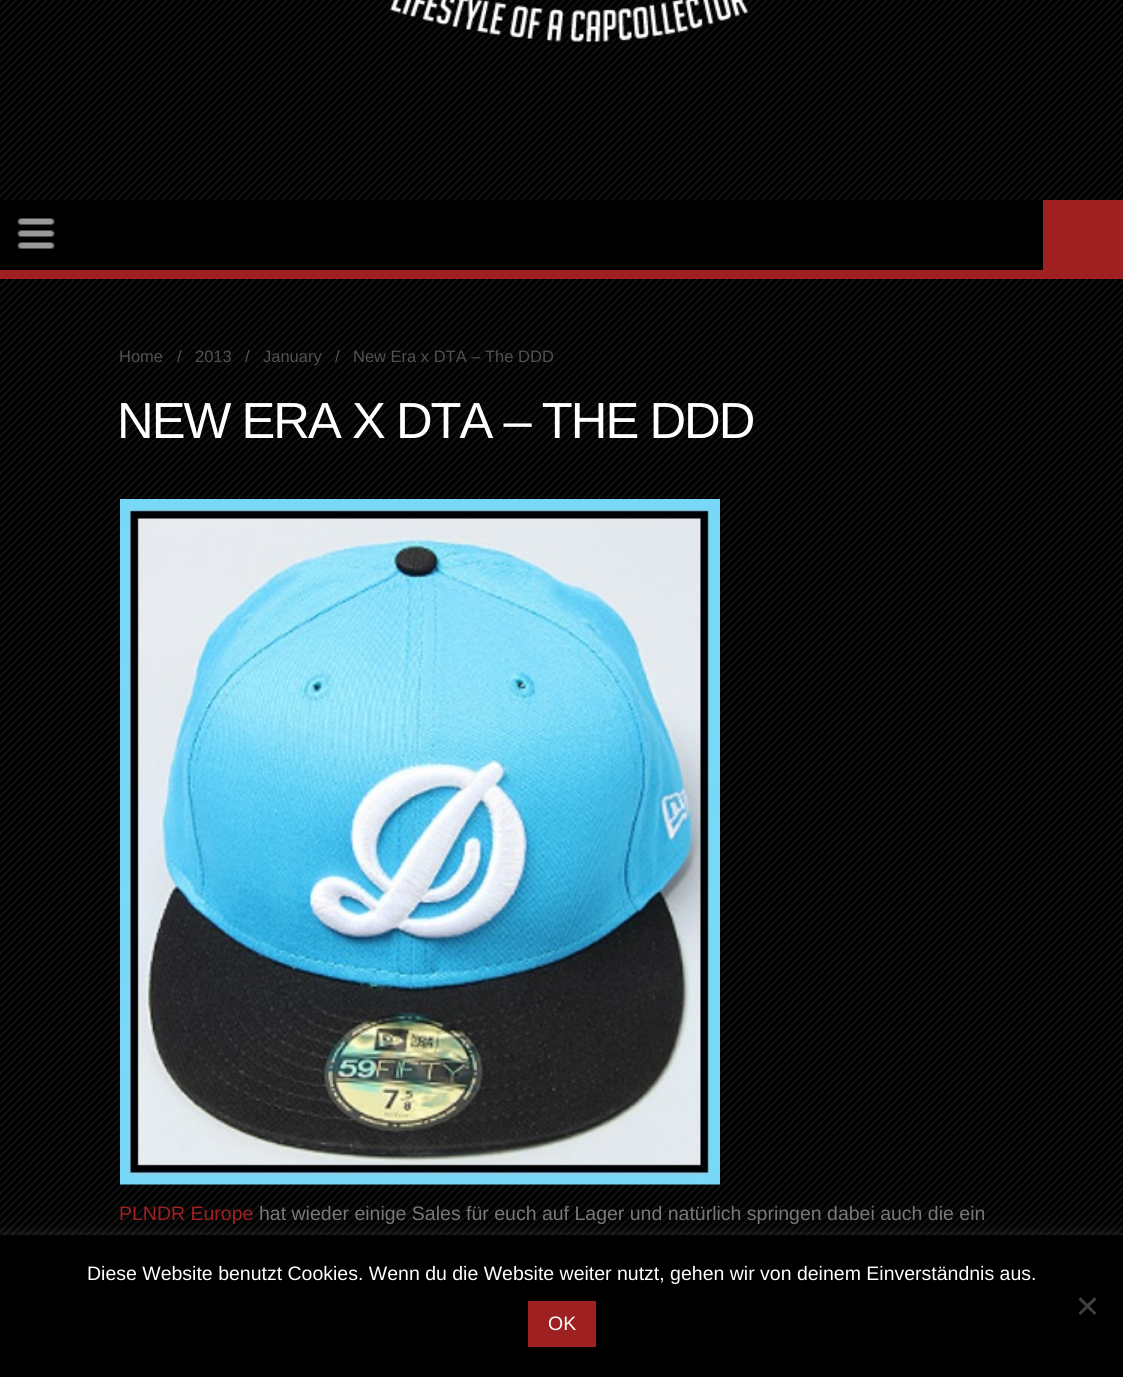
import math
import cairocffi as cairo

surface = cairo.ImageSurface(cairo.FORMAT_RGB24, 1123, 1377)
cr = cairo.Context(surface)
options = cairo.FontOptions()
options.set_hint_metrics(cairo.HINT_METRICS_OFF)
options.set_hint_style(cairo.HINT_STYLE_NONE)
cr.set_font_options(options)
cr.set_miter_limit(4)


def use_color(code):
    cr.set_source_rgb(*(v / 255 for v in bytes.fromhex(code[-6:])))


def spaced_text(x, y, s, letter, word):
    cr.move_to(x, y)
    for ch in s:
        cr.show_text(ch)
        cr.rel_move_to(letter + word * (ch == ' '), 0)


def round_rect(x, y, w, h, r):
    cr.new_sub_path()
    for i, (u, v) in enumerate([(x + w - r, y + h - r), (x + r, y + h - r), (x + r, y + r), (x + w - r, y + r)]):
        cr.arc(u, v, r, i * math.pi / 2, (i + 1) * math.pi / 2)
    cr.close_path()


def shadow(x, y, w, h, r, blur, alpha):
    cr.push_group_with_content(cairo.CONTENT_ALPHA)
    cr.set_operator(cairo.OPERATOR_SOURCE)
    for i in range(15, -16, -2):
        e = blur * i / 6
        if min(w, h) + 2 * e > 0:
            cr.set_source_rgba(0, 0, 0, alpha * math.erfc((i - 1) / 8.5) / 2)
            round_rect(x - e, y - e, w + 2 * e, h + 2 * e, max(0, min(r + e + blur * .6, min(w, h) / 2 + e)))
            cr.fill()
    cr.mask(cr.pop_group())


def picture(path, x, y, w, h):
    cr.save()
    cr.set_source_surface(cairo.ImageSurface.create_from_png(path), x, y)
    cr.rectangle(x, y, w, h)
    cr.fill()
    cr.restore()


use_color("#000000")
cr.paint()
picture("img1.png", 0, 0, 1123, 1235)
picture("img2.png", 389, 0, 362, 45)
use_color("#000000")
cr.rectangle(0, 200, 1043, 70)
cr.fill()
use_color("#9e2020")
cr.rectangle(0, 270, 1123, 9)
cr.fill()
picture("img3.png", 17, 218, 38, 31)
cr.rectangle(1043, 200, 80, 70)
cr.fill()
cr.select_font_face("Liberation Sans")
cr.set_font_size(16.5)
use_color("#515151")
cr.move_to(119, 362)
cr.show_text("Home")
cr.move_to(177, 362)
cr.show_text("/")
cr.move_to(195, 362)
cr.show_text("2013")
cr.move_to(245, 362)
cr.show_text("/")
cr.move_to(263, 362)
cr.show_text("January")
cr.move_to(335, 362)
cr.show_text("/")
cr.move_to(353, 362)
cr.show_text("New Era x DTA – The DDD")
cr.set_font_size(50.75)
use_color("#ffffff")
spaced_text(117, 438, "NEW ERA X DTA – THE DDD", -2, 0)
picture("img4.png", 120, 499, 600, 686)
cr.set_font_size(19.5)
use_color("#9e2020")
cr.move_to(119, 1220)
cr.show_text("PLNDR Europe")
use_color("#787878")
cr.move_to(259, 1220)
cr.show_text("hat wieder einige Sales für euch auf Lager und natürlich springen dabei auch die ein")
use_color("#acabab")
shadow(0, 1238, 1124, 138, 0, 7.5, 0.3)
use_color("#000000")
cr.rectangle(0, 1235, 1123, 142)
cr.fill()
use_color("#ffffff")
cr.move_to(87, 1280)
cr.show_text("Diese Website benutzt Cookies. Wenn du die Website weiter nutzt, gehen wir von deinem Einverständnis aus.")
use_color("#404040")
cr.new_path()
cr.move_to(1094.5, 1297)
cr.line_to(1096.5, 1299.5)
cr.line_to(1080.5, 1315)
cr.line_to(1078.5, 1313)
cr.close_path()
cr.fill()
cr.new_path()
cr.move_to(1078.5, 1299.5)
cr.line_to(1080.5, 1297)
cr.line_to(1096.5, 1313)
cr.line_to(1094.5, 1315)
cr.close_path()
cr.fill()
use_color("#9e2020")
cr.rectangle(528, 1301, 68, 46)
cr.fill()
use_color("#ffffff")
cr.move_to(548, 1330)
cr.show_text("OK")
surface.write_to_png("result.png")
